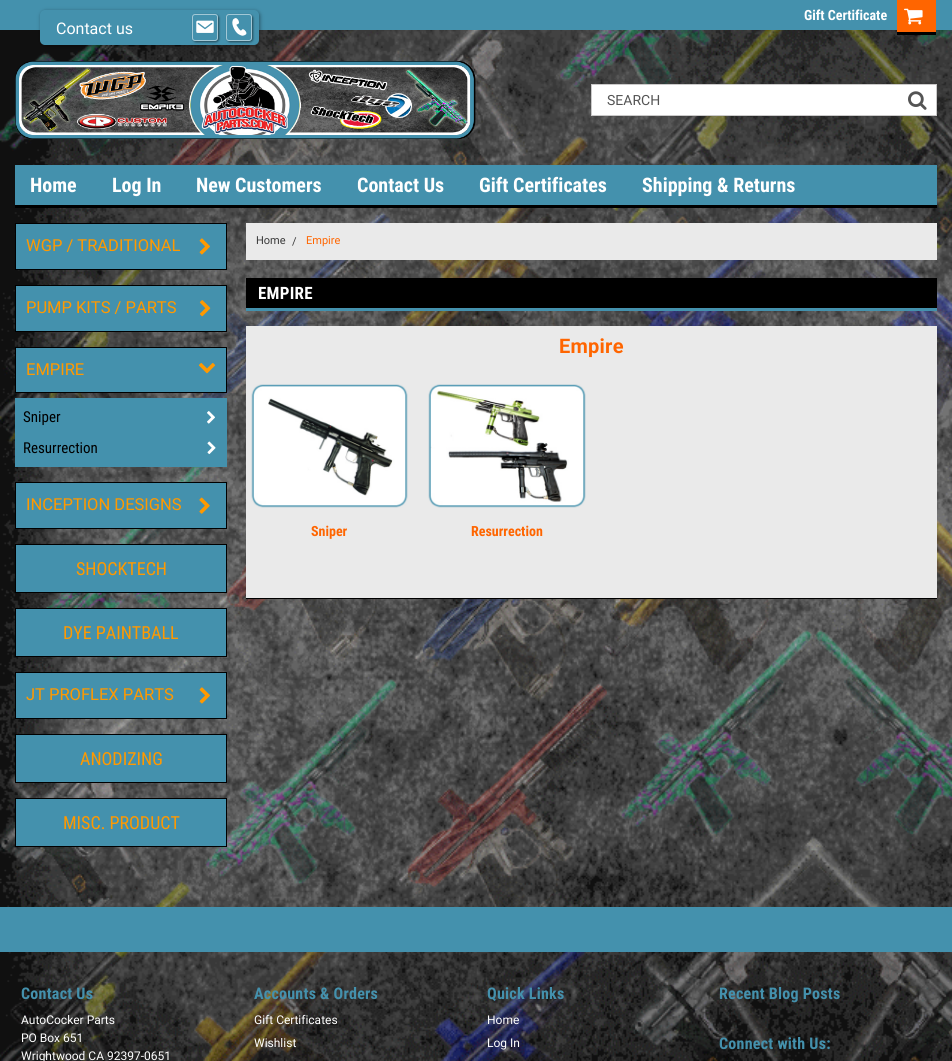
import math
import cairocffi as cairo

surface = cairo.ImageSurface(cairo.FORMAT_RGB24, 952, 1061)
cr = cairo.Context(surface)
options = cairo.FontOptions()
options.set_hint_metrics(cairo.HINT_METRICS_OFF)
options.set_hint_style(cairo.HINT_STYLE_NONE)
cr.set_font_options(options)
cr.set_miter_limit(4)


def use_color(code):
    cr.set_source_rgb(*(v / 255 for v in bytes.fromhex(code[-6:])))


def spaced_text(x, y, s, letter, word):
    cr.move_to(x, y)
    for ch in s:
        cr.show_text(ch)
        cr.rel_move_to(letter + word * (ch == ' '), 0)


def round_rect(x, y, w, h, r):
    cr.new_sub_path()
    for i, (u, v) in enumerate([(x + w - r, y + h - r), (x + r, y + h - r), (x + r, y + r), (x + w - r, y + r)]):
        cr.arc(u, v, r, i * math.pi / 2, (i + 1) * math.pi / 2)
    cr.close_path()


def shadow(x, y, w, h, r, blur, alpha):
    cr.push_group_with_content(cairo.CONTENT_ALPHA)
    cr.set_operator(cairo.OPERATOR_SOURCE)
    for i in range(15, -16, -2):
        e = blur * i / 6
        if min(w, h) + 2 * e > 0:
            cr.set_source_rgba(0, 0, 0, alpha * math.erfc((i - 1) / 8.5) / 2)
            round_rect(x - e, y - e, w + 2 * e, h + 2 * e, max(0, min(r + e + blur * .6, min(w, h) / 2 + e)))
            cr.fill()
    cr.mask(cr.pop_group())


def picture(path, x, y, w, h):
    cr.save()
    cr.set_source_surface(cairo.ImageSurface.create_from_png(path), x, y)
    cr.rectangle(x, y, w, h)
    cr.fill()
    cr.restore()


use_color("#ffffff")
cr.paint()
picture("img1.png", 0, 30, 952, 1031)
use_color("#4491ad")
cr.rectangle(0, 0, 952, 30)
cr.fill()
cr.select_font_face("Roboto Condensed", cairo.FONT_SLANT_NORMAL, cairo.FONT_WEIGHT_BOLD)
cr.set_font_size(14)
use_color("#ffffff")
cr.move_to(804, 20)
cr.show_text("Gift Certificate")
use_color("#ff6500")
cr.rectangle(897, 0, 39, 32)
cr.fill()
use_color("#000000")
cr.rectangle(897, 32, 39, 3)
cr.fill()
picture("img2.png", 904, 8, 19, 17)
use_color("#000000")
shadow(41, 11, 219, 35, 5, 2, 0.4)
use_color("#4491ad")
round_rect(40, 10, 219, 35, 5)
cr.fill()
cr.select_font_face("Roboto")
cr.set_font_size(16)
use_color("#ffffff")
cr.move_to(56, 34)
cr.show_text("Contact us")
cr.save()
cr.set_fill_rule(cairo.FILL_RULE_EVEN_ODD)
cr.new_path()
cr.move_to(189, 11)
cr.line_to(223, 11)
cr.line_to(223, 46)
cr.line_to(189, 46)
cr.close_path()
cr.move_to(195, 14)
cr.line_to(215, 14)
cr.curve_to(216.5, 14, 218, 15.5, 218, 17)
cr.line_to(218, 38)
cr.curve_to(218, 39.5, 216.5, 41, 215, 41)
cr.line_to(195, 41)
cr.curve_to(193.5, 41, 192, 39.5, 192, 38)
cr.line_to(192, 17)
cr.curve_to(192, 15.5, 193.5, 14, 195, 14)
cr.close_path()
cr.clip()
use_color("#000000")
shadow(193, 15, 26, 27, 3, 1, 0.5)
cr.restore()
round_rect(192.5, 14.5, 25, 26, 2.5)
cr.set_source_rgba(1, 1, 1, 0.5)
cr.set_line_width(1)
cr.stroke()
picture("img3.png", 196, 20, 18, 13)
cr.save()
cr.set_fill_rule(cairo.FILL_RULE_EVEN_ODD)
cr.new_path()
cr.move_to(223, 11)
cr.line_to(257, 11)
cr.line_to(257, 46)
cr.line_to(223, 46)
cr.close_path()
cr.move_to(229, 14)
cr.line_to(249, 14)
cr.curve_to(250.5, 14, 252, 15.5, 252, 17)
cr.line_to(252, 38)
cr.curve_to(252, 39.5, 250.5, 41, 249, 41)
cr.line_to(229, 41)
cr.curve_to(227.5, 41, 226, 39.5, 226, 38)
cr.line_to(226, 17)
cr.curve_to(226, 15.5, 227.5, 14, 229, 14)
cr.close_path()
cr.clip()
use_color("#000000")
shadow(227, 15, 26, 27, 3, 1, 0.5)
cr.restore()
round_rect(226.5, 14.5, 25, 26, 2.5)
cr.stroke()
picture("img4.png", 232, 18, 15, 18)
picture("img5.png", 15, 61, 461, 78)
use_color("#ffffff")
cr.rectangle(591.5, 84.5, 345, 31)
cr.fill_preserve()
use_color("#cac9c9")
cr.stroke()
cr.set_font_size(14)
use_color("#545454")
cr.move_to(607, 105)
cr.show_text("SEARCH")
picture("img6.png", 908, 91, 19, 19)
use_color("#4491ad")
cr.rectangle(15, 165, 922, 40)
cr.fill()
use_color("#000000")
cr.rectangle(15, 205, 922, 3)
cr.fill()
cr.select_font_face("Roboto Condensed", cairo.FONT_SLANT_NORMAL, cairo.FONT_WEIGHT_BOLD)
cr.set_font_size(20)
use_color("#ffffff")
cr.move_to(30, 192)
cr.show_text("Home")
cr.move_to(112, 192)
cr.show_text("Log In")
cr.move_to(196, 192)
cr.show_text("New Customers")
cr.move_to(357, 192)
cr.show_text("Contact Us")
cr.move_to(479, 192)
cr.show_text("Gift Certificates")
cr.move_to(642, 192)
cr.show_text("Shipping & Returns")
use_color("#4491ad")
cr.rectangle(15.5, 223.5, 211, 46)
cr.fill_preserve()
use_color("#000000")
cr.stroke()
cr.select_font_face("Roboto")
cr.set_font_size(16.5)
use_color("#ff9900")
cr.move_to(26, 251)
cr.show_text("WGP / TRADITIONAL")
picture("img7.png", 199, 238, 11, 17)
use_color("#4491ad")
cr.rectangle(15.5, 285.5, 211, 46)
cr.fill_preserve()
use_color("#000000")
cr.stroke()
use_color("#ff9900")
cr.move_to(26, 313)
cr.show_text("PUMP KITS / PARTS")
picture("img8.png", 199, 300, 12, 17)
use_color("#4491ad")
cr.rectangle(15.5, 347.5, 211, 45)
cr.fill_preserve()
use_color("#000000")
cr.stroke()
use_color("#ff9900")
cr.move_to(26, 375)
cr.show_text("EMPIRE")
picture("img9.png", 198, 363, 18, 11)
use_color("#4491ad")
cr.rectangle(15, 398, 212, 69)
cr.fill()
cr.select_font_face("Roboto Condensed")
cr.set_font_size(15)
use_color("#000000")
cr.move_to(23, 422)
cr.show_text("Sniper")
picture("img10.png", 207, 411, 8, 13)
cr.move_to(23, 453)
cr.show_text("Resurrection")
picture("img11.png", 207, 441, 9, 14)
use_color("#4491ad")
cr.rectangle(15.5, 482.5, 211, 46)
cr.fill_preserve()
use_color("#000000")
cr.stroke()
cr.select_font_face("Roboto")
cr.set_font_size(16.5)
use_color("#ff9900")
cr.move_to(26, 510)
cr.show_text("INCEPTION DESIGNS")
picture("img12.png", 199, 497, 11, 17)
use_color("#4491ad")
cr.rectangle(15.5, 544.5, 211, 48)
cr.fill_preserve()
use_color("#000000")
cr.stroke()
cr.select_font_face("Roboto Condensed")
cr.set_font_size(18)
use_color("#ff9900")
cr.move_to(76, 575)
cr.show_text("SHOCKTECH")
use_color("#4491ad")
cr.rectangle(15.5, 608.5, 211, 48)
cr.fill_preserve()
use_color("#000000")
cr.stroke()
use_color("#ff9900")
cr.move_to(63, 639)
cr.show_text("DYE PAINTBALL")
use_color("#4491ad")
cr.rectangle(15.5, 672.5, 211, 46)
cr.fill_preserve()
use_color("#000000")
cr.stroke()
cr.select_font_face("Roboto")
cr.set_font_size(16.5)
use_color("#ff9900")
cr.move_to(26, 700)
cr.show_text("JT PROFLEX PARTS")
picture("img7.png", 199, 687, 11, 17)
use_color("#4491ad")
cr.rectangle(15.5, 734.5, 211, 48)
cr.fill_preserve()
use_color("#000000")
cr.stroke()
cr.select_font_face("Roboto Condensed")
cr.set_font_size(18)
use_color("#ff9900")
cr.move_to(80, 765)
cr.show_text("ANODIZING")
use_color("#4491ad")
cr.rectangle(15.5, 798.5, 211, 48)
cr.fill_preserve()
use_color("#000000")
cr.stroke()
use_color("#ff9900")
cr.move_to(63, 829)
cr.show_text("MISC. PRODUCT")
use_color("#eaeaea")
cr.rectangle(246, 223, 691, 37)
cr.fill()
cr.select_font_face("Roboto")
cr.set_font_size(11)
use_color("#393939")
cr.move_to(256, 244)
cr.show_text("Home")
cr.move_to(292, 245)
cr.show_text("/")
use_color("#ff6500")
cr.move_to(306, 244)
cr.show_text("Empire")
use_color("#000000")
cr.rectangle(246, 278, 691, 30)
cr.fill()
use_color("#4491ad")
cr.rectangle(246, 308, 691, 3)
cr.fill()
cr.select_font_face("Roboto Condensed", cairo.FONT_SLANT_NORMAL, cairo.FONT_WEIGHT_BOLD)
cr.set_font_size(17)
use_color("#ffffff")
spaced_text(258, 299, "EMPIRE", 0.25, 0)
use_color("#eaeaea")
cr.rectangle(246, 326, 691, 272)
cr.fill()
use_color("#000000")
cr.rectangle(246, 598, 691, 1)
cr.fill()
cr.select_font_face("Roboto", cairo.FONT_SLANT_NORMAL, cairo.FONT_WEIGHT_BOLD)
cr.set_font_size(20)
use_color("#ff6500")
spaced_text(559, 353, "Empire", 0.25, 0)
picture("img13.png", 251, 384, 157, 124)
cr.select_font_face("Roboto Condensed", cairo.FONT_SLANT_NORMAL, cairo.FONT_WEIGHT_BOLD)
cr.set_font_size(14)
cr.move_to(311, 536)
cr.show_text("Sniper")
picture("img14.png", 428, 384, 158, 124)
cr.move_to(471, 536)
cr.show_text("Resurrection")
use_color("#4491ad")
cr.rectangle(0, 907, 952, 45)
cr.fill()
cr.set_font_size(16)
spaced_text(21, 999, "Contact Us", 0.25, 0)
cr.select_font_face("Roboto")
cr.set_font_size(12)
use_color("#ffffff")
cr.move_to(21, 1024)
cr.show_text("AutoCocker Parts")
cr.move_to(21, 1042)
cr.show_text("PO Box 651")
cr.move_to(21, 1060)
cr.show_text("Wrightwood CA 92397-0651")
cr.select_font_face("Roboto Condensed", cairo.FONT_SLANT_NORMAL, cairo.FONT_WEIGHT_BOLD)
cr.set_font_size(16)
use_color("#4491ad")
spaced_text(254, 999, "Accounts & Orders", 0.25, 0)
cr.select_font_face("Roboto")
cr.set_font_size(12)
use_color("#ffffff")
cr.move_to(254, 1024)
cr.show_text("Gift Certificates")
cr.move_to(254, 1047)
cr.show_text("Wishlist")
cr.select_font_face("Roboto Condensed", cairo.FONT_SLANT_NORMAL, cairo.FONT_WEIGHT_BOLD)
cr.set_font_size(16)
use_color("#4491ad")
spaced_text(487, 999, "Quick Links", 0.25, 0)
cr.select_font_face("Roboto")
cr.set_font_size(12)
use_color("#ffffff")
cr.move_to(487, 1024)
cr.show_text("Home")
cr.move_to(487, 1047)
cr.show_text("Log In")
cr.select_font_face("Roboto Condensed", cairo.FONT_SLANT_NORMAL, cairo.FONT_WEIGHT_BOLD)
cr.set_font_size(16)
use_color("#4491ad")
spaced_text(719, 999, "Recent Blog Posts", 0.25, 0)
spaced_text(719, 1049, "Connect with Us:", 0.25, 0)
surface.write_to_png("result.png")
